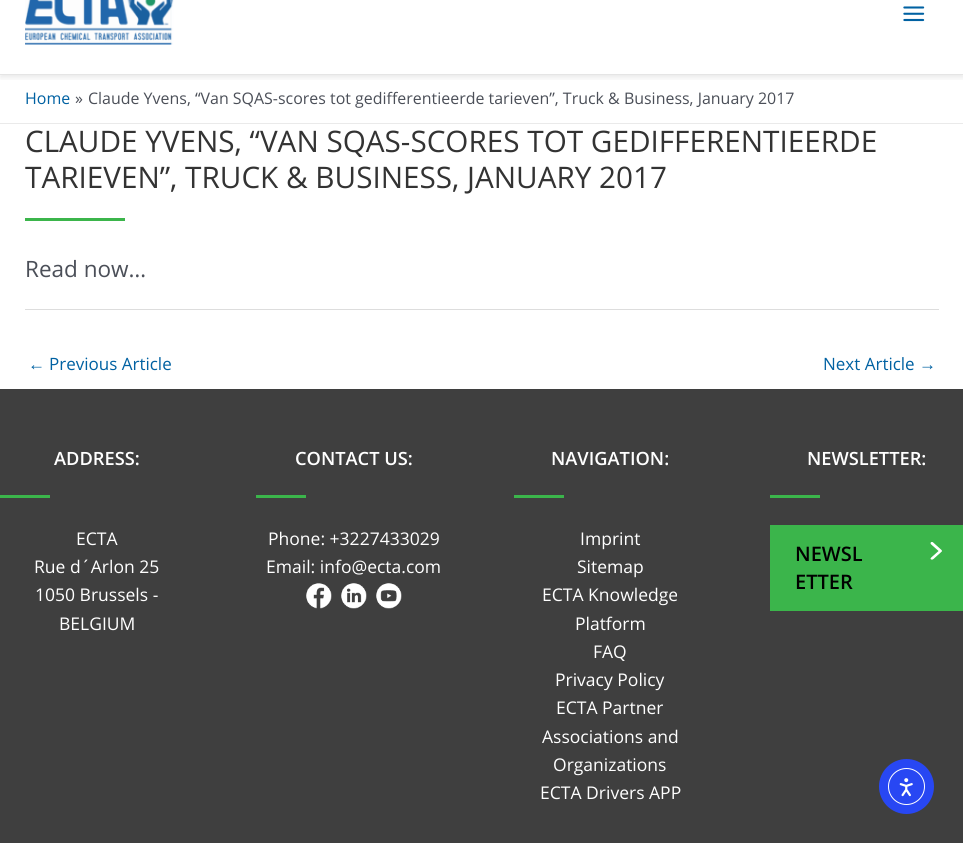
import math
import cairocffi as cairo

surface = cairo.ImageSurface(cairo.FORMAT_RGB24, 963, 843)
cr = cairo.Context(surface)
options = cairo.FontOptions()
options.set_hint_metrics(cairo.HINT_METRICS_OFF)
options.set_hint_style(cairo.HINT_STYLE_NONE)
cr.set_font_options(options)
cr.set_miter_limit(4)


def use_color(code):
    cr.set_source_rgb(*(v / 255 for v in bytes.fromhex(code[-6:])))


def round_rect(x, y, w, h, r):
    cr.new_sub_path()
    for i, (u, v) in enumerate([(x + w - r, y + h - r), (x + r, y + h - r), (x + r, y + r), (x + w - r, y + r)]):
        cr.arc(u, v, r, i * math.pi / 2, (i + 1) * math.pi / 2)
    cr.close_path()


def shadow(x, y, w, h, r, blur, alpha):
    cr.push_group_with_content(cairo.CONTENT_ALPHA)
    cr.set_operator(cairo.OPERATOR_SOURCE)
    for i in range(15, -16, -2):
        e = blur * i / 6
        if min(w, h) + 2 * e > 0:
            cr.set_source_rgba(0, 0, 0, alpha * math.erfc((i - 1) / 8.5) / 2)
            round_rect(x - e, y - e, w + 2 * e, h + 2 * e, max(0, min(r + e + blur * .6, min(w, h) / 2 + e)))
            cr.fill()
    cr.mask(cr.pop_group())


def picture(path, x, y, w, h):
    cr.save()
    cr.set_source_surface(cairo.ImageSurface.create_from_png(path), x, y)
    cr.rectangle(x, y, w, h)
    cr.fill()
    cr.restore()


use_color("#ffffff")
cr.paint()
cr.save()
cr.rectangle(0, 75, 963, 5)
cr.clip()
use_color("#000000")
shadow(0, -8, 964, 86, 0, 2.5, 0.08)
cr.restore()
use_color("#e5e5e5")
cr.rectangle(0, 74, 963, 1)
cr.fill()
picture("img1.png", 25, 0, 149, 45)
picture("img2.png", 903, 6, 22, 16)
use_color("#eaeaea")
cr.rectangle(0, 123, 963, 1)
cr.fill()
cr.select_font_face("Open Sans")
cr.set_font_size(15.95)
use_color("#0061a2")
cr.move_to(25, 104)
cr.show_text("Home")
use_color("#4b4f58")
cr.move_to(75, 104)
cr.show_text("»")
cr.move_to(88, 104)
cr.show_text("Claude Yvens, “Van SQAS-scores tot gedifferentieerde tarieven”, Truck & Business, January 2017")
cr.set_font_size(29.65)
use_color("#333333")
cr.move_to(25, 152)
cr.show_text("CLAUDE YVENS, “VAN SQAS-SCORES TOT GEDIFFERENTIEERDE")
cr.move_to(25, 188)
cr.show_text("TARIEVEN”, TRUCK & BUSINESS, JANUARY 2017")
use_color("#3bb54b")
cr.rectangle(25, 218, 100, 3)
cr.fill()
cr.set_font_size(22.5)
use_color("#4b4f58")
cr.move_to(25, 277)
cr.show_text("Read now…")
use_color("#dddddd")
cr.rectangle(25, 309, 914, 1)
cr.fill()
cr.select_font_face("Liberation Sans")
cr.set_font_size(17)
use_color("#0061a2")
cr.move_to(28, 370)
cr.show_text("←")
cr.select_font_face("Open Sans")
cr.move_to(49, 370)
cr.show_text("Previous Article")
cr.move_to(823, 370)
cr.show_text("Next Article")
cr.select_font_face("Liberation Sans")
cr.move_to(919, 370)
cr.show_text("→")
use_color("#3f3f3f")
cr.rectangle(0, 389, 963, 454)
cr.fill()
cr.select_font_face("Open Sans SemiBold")
cr.set_font_size(18.25)
use_color("#ffffff")
cr.move_to(54, 465)
cr.show_text("ADDRESS:")
use_color("#3bb54b")
cr.rectangle(0, 495, 50, 3)
cr.fill()
cr.select_font_face("Open Sans")
cr.set_font_size(17.5)
use_color("#ffffff")
cr.move_to(76, 545)
cr.show_text("ECTA")
cr.move_to(34, 573)
cr.show_text("Rue d´Arlon 25")
cr.move_to(35, 601)
cr.show_text("1050 Brussels -")
cr.move_to(59, 630)
cr.show_text("BELGIUM")
cr.select_font_face("Open Sans SemiBold")
cr.set_font_size(18.25)
cr.move_to(295, 465)
cr.show_text("CONTACT US:")
use_color("#3bb54b")
cr.rectangle(256, 495, 50, 3)
cr.fill()
cr.select_font_face("Open Sans")
cr.set_font_size(17.5)
use_color("#ffffff")
cr.move_to(268, 545)
cr.show_text("Phone: +3227433029")
cr.move_to(266, 573)
cr.show_text("Email: info@ecta.com")
picture("img3.png", 306, 583, 26, 26)
picture("img4.png", 341, 583, 26, 26)
picture("img5.png", 376, 583, 26, 26)
cr.select_font_face("Open Sans SemiBold")
cr.set_font_size(18.25)
cr.move_to(551, 465)
cr.show_text("NAVIGATION:")
use_color("#3bb54b")
cr.rectangle(514, 495, 50, 3)
cr.fill()
cr.select_font_face("Open Sans")
cr.set_font_size(17.5)
use_color("#ffffff")
cr.move_to(580, 545)
cr.show_text("Imprint")
cr.move_to(577, 573)
cr.show_text("Sitemap")
cr.move_to(542, 601)
cr.show_text("ECTA Knowledge")
cr.move_to(575, 630)
cr.show_text("Platform")
cr.move_to(593, 658)
cr.show_text("FAQ")
cr.move_to(555, 686)
cr.show_text("Privacy Policy")
cr.move_to(556, 714)
cr.show_text("ECTA Partner")
cr.move_to(542, 743)
cr.show_text("Associations and")
cr.move_to(553, 771)
cr.show_text("Organizations")
cr.move_to(540, 799)
cr.show_text("ECTA Drivers APP")
cr.select_font_face("Open Sans SemiBold")
cr.set_font_size(18.25)
cr.move_to(807, 465)
cr.show_text("NEWSLETTER:")
use_color("#3bb54b")
cr.rectangle(770, 495, 50, 3)
cr.fill()
cr.rectangle(770, 525, 193, 86)
cr.fill()
cr.set_font_size(20)
use_color("#000000")
cr.move_to(795, 561)
cr.show_text("NEWSL")
picture("img6.png", 930, 542, 12, 18)
cr.move_to(795, 589)
cr.show_text("ETTER")
use_color("#2847f3")
cr.new_path()
cr.arc(906.5, 786.5, 27.5, 0, 2 * math.pi)
cr.fill()
cr.arc(906.5, 786.5, 18, 0, 2 * math.pi)
use_color("#ffffff")
cr.set_line_width(1)
cr.stroke()
picture("img7.png", 899, 778, 14, 19)
surface.write_to_png("result.png")
